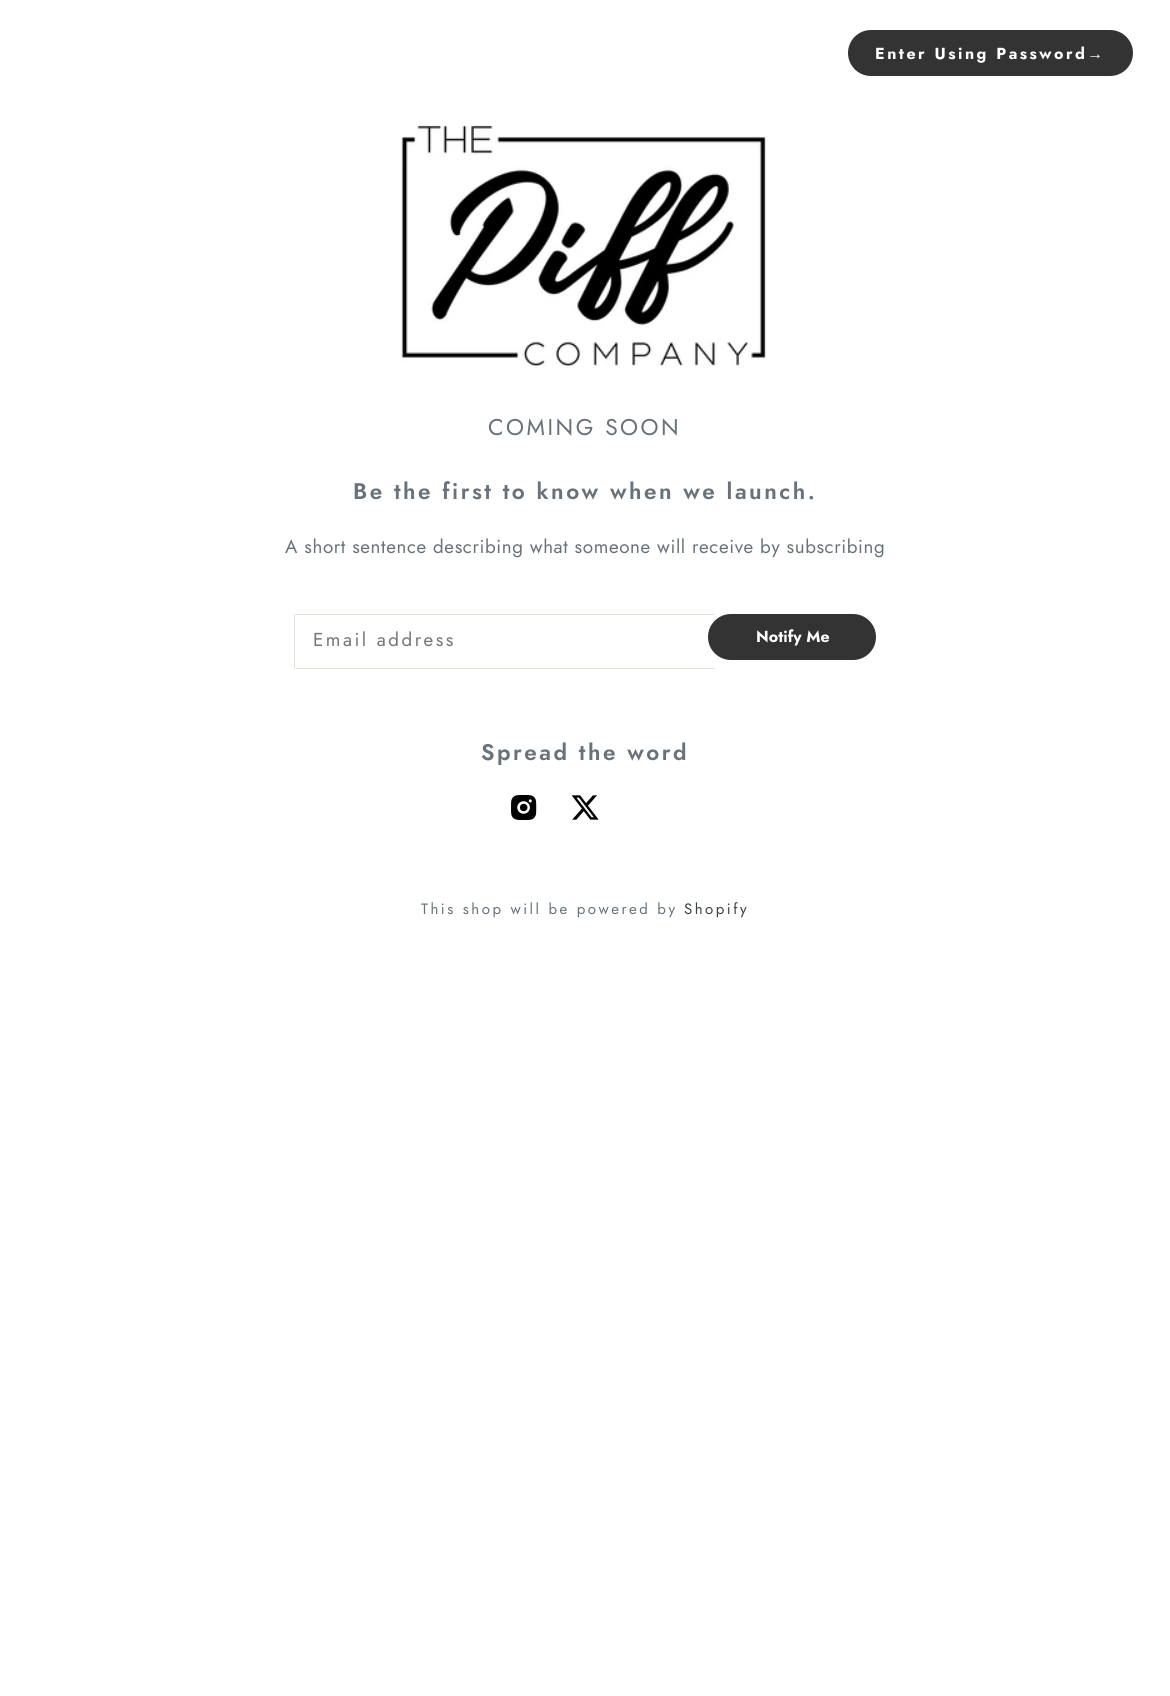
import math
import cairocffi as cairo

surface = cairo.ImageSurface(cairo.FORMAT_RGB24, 1170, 1696)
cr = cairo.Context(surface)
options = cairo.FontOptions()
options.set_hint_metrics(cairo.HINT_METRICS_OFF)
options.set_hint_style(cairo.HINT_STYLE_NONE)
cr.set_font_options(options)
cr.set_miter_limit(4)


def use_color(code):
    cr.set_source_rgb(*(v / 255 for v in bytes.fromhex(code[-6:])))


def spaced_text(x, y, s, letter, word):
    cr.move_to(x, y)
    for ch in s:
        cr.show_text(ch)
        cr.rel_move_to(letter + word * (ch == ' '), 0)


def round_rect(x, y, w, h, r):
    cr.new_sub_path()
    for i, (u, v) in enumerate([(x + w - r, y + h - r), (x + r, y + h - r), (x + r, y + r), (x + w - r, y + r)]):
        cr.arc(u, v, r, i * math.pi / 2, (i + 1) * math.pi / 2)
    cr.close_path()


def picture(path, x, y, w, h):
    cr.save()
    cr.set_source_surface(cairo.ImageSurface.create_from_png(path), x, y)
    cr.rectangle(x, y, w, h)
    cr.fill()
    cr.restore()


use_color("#ffffff")
cr.paint()
use_color("#333333")
round_rect(849.5, 31.5, 282, 43, 21.5)
cr.fill_preserve()
cr.set_line_width(3)
cr.stroke()
cr.select_font_face("Jost", cairo.FONT_SLANT_NORMAL, cairo.FONT_WEIGHT_BOLD)
cr.set_font_size(16)
use_color("#ffffff")
spaced_text(875, 59, "Enter Using Password", 2.5, 0)
cr.select_font_face("Liberation Serif", cairo.FONT_SLANT_NORMAL, cairo.FONT_WEIGHT_BOLD)
spaced_text(1087, 59, "→", 2.5, 0)
picture("img1.png", 399, 125, 367, 242)
cr.select_font_face("Jost")
cr.set_font_size(22.75)
use_color("#69727b")
spaced_text(488, 435, "COMING SOON", 2.5, 0)
cr.select_font_face("Jost SemiBold")
cr.set_font_size(22.5)
spaced_text(353, 499, "Be the first to know when we launch.", 2.5, 0)
cr.select_font_face("Jost")
cr.set_font_size(18.75)
spaced_text(285, 553, "A short sentence describing what someone will receive by subscribing", 0.62, 0)
use_color("#e3e0d3")
cr.rectangle(295, 614, 419, 1)
cr.fill()
cr.rectangle(295, 668, 419, 1)
cr.fill()
cr.rectangle(294, 615, 1, 53)
cr.fill()
use_color("#757575")
spaced_text(313, 646, "Email address", 2.5, 0)
use_color("#333333")
round_rect(709.5, 615.5, 165, 43, 21.5)
cr.fill_preserve()
cr.stroke()
cr.select_font_face("Jost", cairo.FONT_SLANT_NORMAL, cairo.FONT_WEIGHT_BOLD)
cr.set_font_size(16)
use_color("#ffffff")
cr.move_to(756, 642)
cr.show_text("Notify Me")
cr.select_font_face("Jost SemiBold")
cr.set_font_size(22.5)
use_color("#69727b")
spaced_text(481, 760, "Spread the word", 2.5, 0)
picture("img2.png", 511, 795, 26, 25)
picture("img3.png", 571, 795, 28, 25)
cr.select_font_face("Jost")
cr.set_font_size(15)
spaced_text(421, 914, "This shop will be powered by", 2.5, 0)
use_color("#3d4246")
spaced_text(684, 914, "Shopify", 2.5, 0)
surface.write_to_png("result.png")
